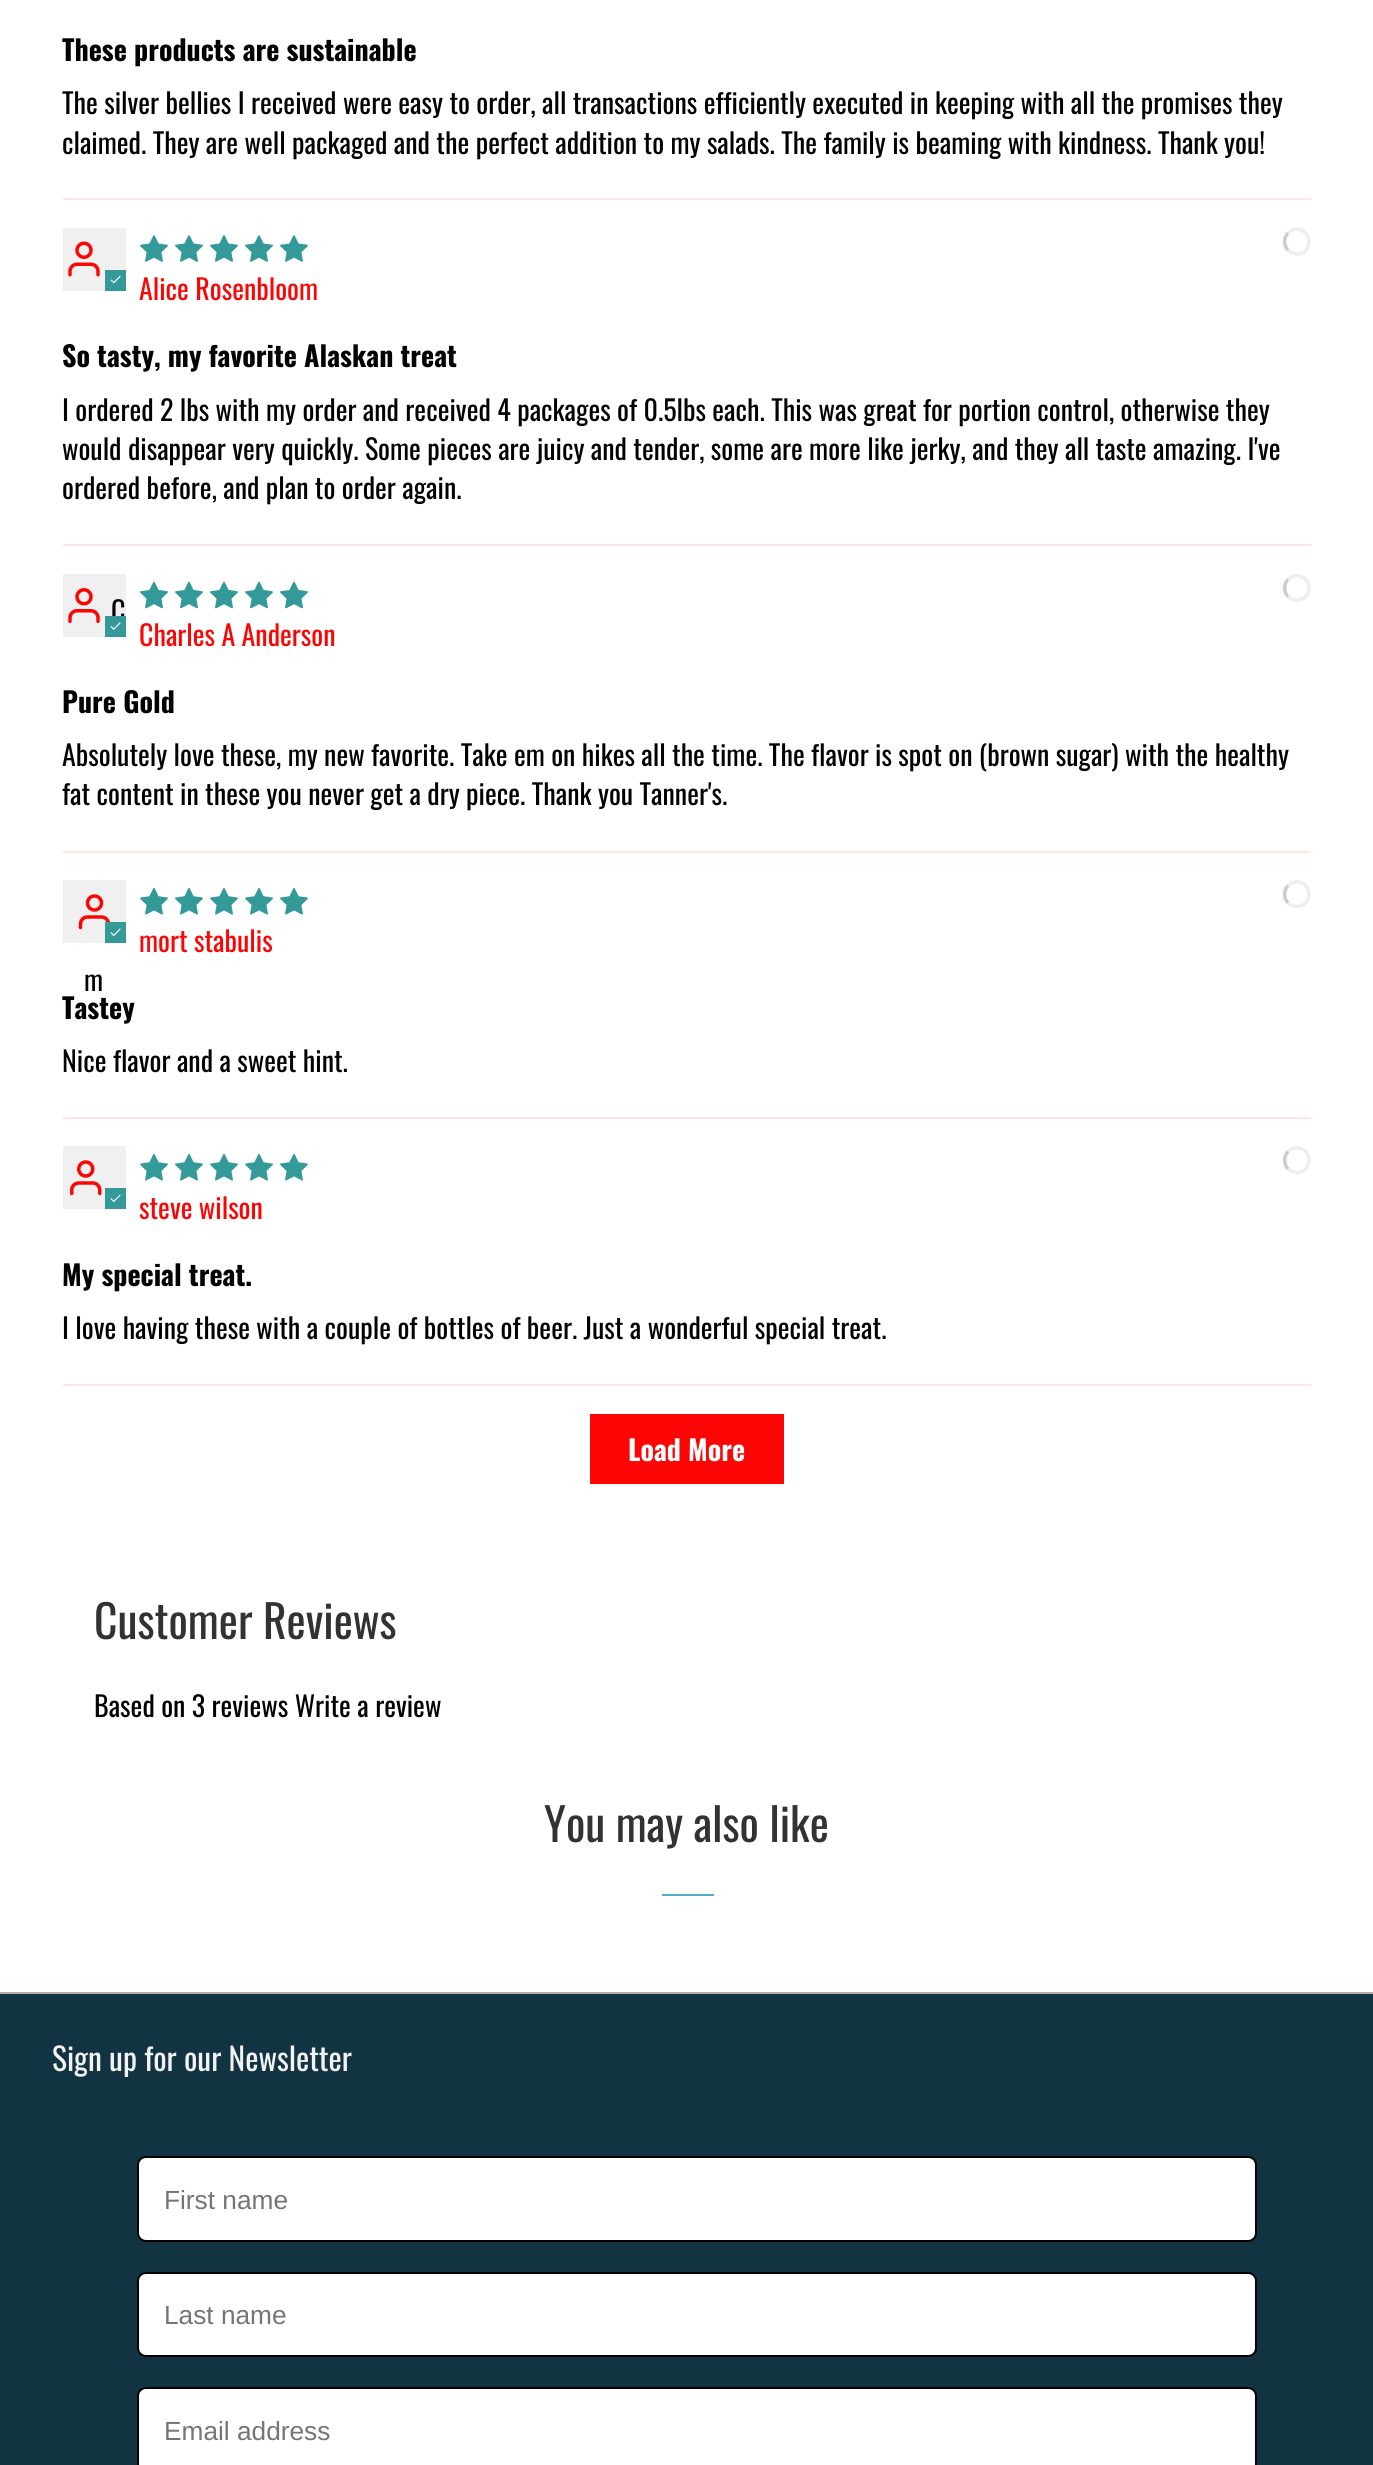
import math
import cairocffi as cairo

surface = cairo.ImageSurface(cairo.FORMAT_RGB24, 1373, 2465)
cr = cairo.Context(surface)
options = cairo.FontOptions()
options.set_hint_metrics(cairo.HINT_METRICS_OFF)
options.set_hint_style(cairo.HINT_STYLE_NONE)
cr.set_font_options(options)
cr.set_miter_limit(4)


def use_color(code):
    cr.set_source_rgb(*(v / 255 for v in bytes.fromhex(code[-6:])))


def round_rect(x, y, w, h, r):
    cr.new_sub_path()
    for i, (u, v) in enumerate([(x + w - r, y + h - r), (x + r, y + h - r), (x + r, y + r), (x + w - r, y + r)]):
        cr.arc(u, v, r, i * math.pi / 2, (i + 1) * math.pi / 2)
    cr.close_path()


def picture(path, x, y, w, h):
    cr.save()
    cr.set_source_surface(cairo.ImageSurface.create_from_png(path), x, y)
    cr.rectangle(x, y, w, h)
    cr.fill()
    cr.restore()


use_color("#ffffff")
cr.paint()
cr.select_font_face("Oswald", cairo.FONT_SLANT_NORMAL, cairo.FONT_WEIGHT_BOLD)
cr.set_font_size(28)
use_color("#020202")
cr.move_to(62, 61)
cr.show_text("These products are sustainable")
cr.select_font_face("Oswald")
cr.move_to(62, 114)
cr.show_text("The silver bellies I received were easy to order, all transactions efficiently executed in keeping with all the promises they")
cr.move_to(62, 154)
cr.show_text("claimed. They are well packaged and the perfect addition to my salads. The family is beaming with kindness. Thank you!")
use_color("#ffe6e6")
cr.rectangle(63, 198, 1248, 2)
cr.fill()
use_color("#f0f0f0")
cr.rectangle(63, 228, 63, 63)
cr.fill()
picture("img1.png", 68, 241, 32, 36)
use_color("#339999")
cr.rectangle(105, 270, 21, 21)
cr.fill()
picture("img2.png", 110, 275, 11, 9)
picture("img3.png", 140, 235, 28, 27)
picture("img3.png", 175, 235, 28, 27)
picture("img3.png", 210, 235, 28, 27)
picture("img3.png", 245, 235, 28, 27)
picture("img3.png", 280, 235, 28, 27)
cr.new_path()
cr.move_to(1288, 233)
cr.curve_to(1291, 230, 1295, 228.5, 1299, 229.5)
cr.curve_to(1313.5, 232.5, 1311.5, 254, 1297, 254)
cr.curve_to(1293.5, 253.5, 1290.5, 252.5, 1288, 250)
use_color("#eeeeee")
cr.set_line_width(3.5)
cr.stroke()
cr.new_path()
cr.move_to(1288, 250)
cr.curve_to(1283.5, 245.5, 1283.5, 237.5, 1288, 233)
use_color("#cccccc")
cr.stroke()
use_color("#fc0505")
cr.move_to(139, 300)
cr.show_text("Alice Rosenbloom")
cr.select_font_face("Oswald", cairo.FONT_SLANT_NORMAL, cairo.FONT_WEIGHT_BOLD)
use_color("#020202")
cr.move_to(62, 367)
cr.show_text("So tasty, my favorite Alaskan treat")
cr.select_font_face("Oswald")
cr.move_to(62, 421)
cr.show_text("I ordered 2 lbs with my order and received 4 packages of 0.5lbs each. This was great for portion control, otherwise they")
cr.move_to(62, 460)
cr.show_text("would disappear very quickly. Some pieces are juicy and tender, some are more like jerky, and they all taste amazing. I've")
cr.move_to(62, 499)
cr.show_text("ordered before, and plan to order again.")
use_color("#ffe6e6")
cr.rectangle(63, 544, 1248, 2)
cr.fill()
use_color("#f0f0f0")
cr.rectangle(63, 574, 63, 63)
cr.fill()
picture("img4.png", 68, 588, 32, 35)
use_color("#020202")
cr.move_to(111, 622)
cr.show_text("C")
use_color("#339999")
cr.rectangle(105, 616, 21, 21)
cr.fill()
picture("img5.png", 110, 622, 11, 8)
picture("img6.png", 140, 581, 28, 28)
picture("img6.png", 175, 581, 28, 28)
picture("img6.png", 210, 581, 28, 28)
picture("img6.png", 245, 581, 28, 28)
picture("img6.png", 280, 581, 28, 28)
cr.new_path()
cr.move_to(1288, 579.5)
cr.curve_to(1291, 576.5, 1295, 575, 1299, 576)
cr.curve_to(1313.5, 579, 1311.5, 600, 1297, 600)
cr.curve_to(1293.5, 600, 1290.5, 599, 1288, 596.5)
use_color("#eeeeee")
cr.stroke()
cr.new_path()
cr.move_to(1288, 596.5)
cr.curve_to(1283.5, 592, 1283.5, 584, 1288, 579.5)
use_color("#cccccc")
cr.stroke()
use_color("#fc0505")
cr.move_to(139, 646)
cr.show_text("Charles A Anderson")
cr.select_font_face("Oswald", cairo.FONT_SLANT_NORMAL, cairo.FONT_WEIGHT_BOLD)
use_color("#020202")
cr.move_to(62, 713)
cr.show_text("Pure Gold")
cr.select_font_face("Oswald")
cr.move_to(62, 766)
cr.show_text("Absolutely love these, my new favorite. Take em on hikes all the time. The flavor is spot on (brown sugar) with the healthy")
cr.move_to(62, 805)
cr.show_text("fat content in these you never get a dry piece. Thank you Tanner's.")
use_color("#ffe6e6")
cr.rectangle(63, 851, 1248, 2)
cr.fill()
picture("img7.png", 140, 888, 28, 27)
picture("img7.png", 175, 888, 28, 27)
picture("img7.png", 210, 888, 28, 27)
picture("img7.png", 245, 888, 28, 27)
picture("img7.png", 280, 888, 28, 27)
cr.new_path()
cr.move_to(1288, 885.5)
cr.curve_to(1291, 882.5, 1295, 881.5, 1299, 882)
cr.curve_to(1313.5, 885, 1311.5, 906.5, 1297, 906.5)
cr.curve_to(1293.5, 906.5, 1290.5, 905, 1288, 903)
use_color("#eeeeee")
cr.stroke()
cr.new_path()
cr.move_to(1288, 903)
cr.curve_to(1283.5, 898, 1283.5, 890.5, 1288, 885.5)
use_color("#cccccc")
cr.stroke()
use_color("#fc0505")
cr.move_to(139, 952)
cr.show_text("mort stabulis")
use_color("#f0f0f0")
cr.rectangle(63, 880, 63, 63)
cr.fill()
picture("img8.png", 78, 894, 32, 36)
use_color("#339999")
cr.rectangle(105, 922, 21, 21)
cr.fill()
picture("img9.png", 110, 928, 11, 9)
use_color("#020202")
cr.move_to(84, 991)
cr.show_text("m")
cr.select_font_face("Oswald", cairo.FONT_SLANT_NORMAL, cairo.FONT_WEIGHT_BOLD)
cr.move_to(62, 1019)
cr.show_text("Tastey")
cr.select_font_face("Oswald")
cr.move_to(62, 1072)
cr.show_text("Nice flavor and a sweet hint.")
use_color("#ffe6e6")
cr.rectangle(63, 1117, 1248, 2)
cr.fill()
use_color("#f0f0f0")
cr.rectangle(63, 1146, 63, 63)
cr.fill()
picture("img10.png", 70, 1160, 32, 36)
use_color("#339999")
cr.rectangle(105, 1188, 21, 21)
cr.fill()
picture("img9.png", 110, 1194, 11, 9)
picture("img7.png", 140, 1154, 28, 27)
picture("img7.png", 175, 1154, 28, 27)
picture("img7.png", 210, 1154, 28, 27)
picture("img7.png", 245, 1154, 28, 27)
picture("img7.png", 280, 1154, 28, 27)
cr.new_path()
cr.move_to(1288, 1151.5)
cr.curve_to(1291, 1148.5, 1295, 1147.5, 1299, 1148)
cr.curve_to(1313.5, 1151, 1311.5, 1172.5, 1297, 1172.5)
cr.curve_to(1293.5, 1172.5, 1290.5, 1171, 1288, 1169)
use_color("#eeeeee")
cr.stroke()
cr.new_path()
cr.move_to(1288, 1169)
cr.curve_to(1283.5, 1164, 1283.5, 1156.5, 1288, 1151.5)
use_color("#cccccc")
cr.stroke()
use_color("#fc0505")
cr.move_to(139, 1219)
cr.show_text("steve wilson")
cr.select_font_face("Oswald", cairo.FONT_SLANT_NORMAL, cairo.FONT_WEIGHT_BOLD)
use_color("#020202")
cr.move_to(62, 1286)
cr.show_text("My special treat.")
cr.select_font_face("Oswald")
cr.move_to(62, 1339)
cr.show_text("I love having these with a couple of bottles of beer. Just a wonderful special treat.")
use_color("#ffe6e6")
cr.rectangle(63, 1384, 1248, 2)
cr.fill()
use_color("#fc0505")
cr.rectangle(590, 1414, 194, 70)
cr.fill()
cr.select_font_face("Oswald", cairo.FONT_SLANT_NORMAL, cairo.FONT_WEIGHT_BOLD)
use_color("#ffffff")
cr.move_to(628, 1461)
cr.show_text("Load More")
cr.select_font_face("Oswald")
cr.set_font_size(45.5)
use_color("#323232")
cr.move_to(94, 1639)
cr.show_text("Customer Reviews")
cr.set_font_size(28)
use_color("#020202")
cr.move_to(94, 1717)
cr.show_text("Based on 3 reviews Write a review")
cr.set_font_size(45.5)
use_color("#323232")
cr.move_to(544, 1842)
cr.show_text("You may also like")
use_color("#54adc9")
cr.rectangle(662, 1894, 52, 2)
cr.fill()
use_color("#123341")
cr.rectangle(0, 1994, 1373, 471)
cr.fill()
use_color("#b4ac9f")
cr.rectangle(0, 1992, 1373, 2)
cr.fill()
cr.set_font_size(31.5)
use_color("#f2f2f2")
cr.move_to(52, 2071)
cr.show_text("Sign up for our Newsletter")
use_color("#ffffff")
round_rect(138, 2157, 1118, 84, 8)
cr.fill_preserve()
use_color("#020202")
cr.set_line_width(2)
cr.stroke()
cr.select_font_face("Liberation Sans")
cr.set_font_size(26.25)
use_color("#757575")
cr.move_to(164, 2209)
cr.show_text("First name")
use_color("#ffffff")
round_rect(138, 2273, 1118, 83, 8)
cr.fill_preserve()
use_color("#020202")
cr.stroke()
use_color("#757575")
cr.move_to(164, 2324)
cr.show_text("Last name")
use_color("#ffffff")
round_rect(138, 2388, 1118, 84, 8)
cr.fill_preserve()
use_color("#020202")
cr.stroke()
use_color("#757575")
cr.move_to(164, 2440)
cr.show_text("Email address")
surface.write_to_png("result.png")
